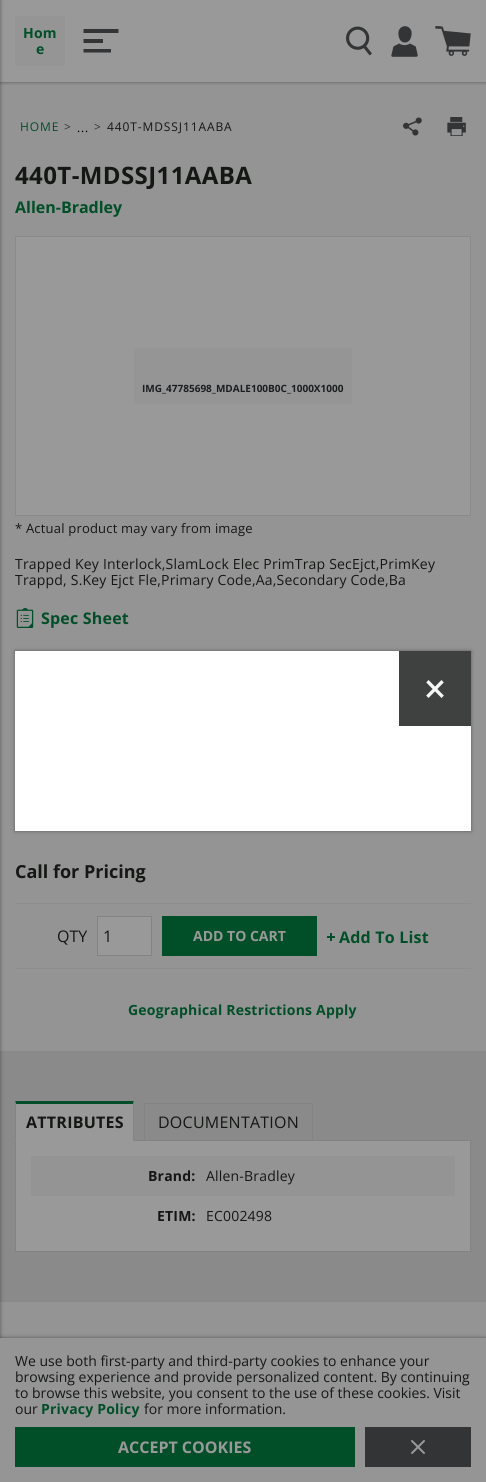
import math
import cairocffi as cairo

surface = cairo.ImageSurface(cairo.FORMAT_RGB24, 486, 1482)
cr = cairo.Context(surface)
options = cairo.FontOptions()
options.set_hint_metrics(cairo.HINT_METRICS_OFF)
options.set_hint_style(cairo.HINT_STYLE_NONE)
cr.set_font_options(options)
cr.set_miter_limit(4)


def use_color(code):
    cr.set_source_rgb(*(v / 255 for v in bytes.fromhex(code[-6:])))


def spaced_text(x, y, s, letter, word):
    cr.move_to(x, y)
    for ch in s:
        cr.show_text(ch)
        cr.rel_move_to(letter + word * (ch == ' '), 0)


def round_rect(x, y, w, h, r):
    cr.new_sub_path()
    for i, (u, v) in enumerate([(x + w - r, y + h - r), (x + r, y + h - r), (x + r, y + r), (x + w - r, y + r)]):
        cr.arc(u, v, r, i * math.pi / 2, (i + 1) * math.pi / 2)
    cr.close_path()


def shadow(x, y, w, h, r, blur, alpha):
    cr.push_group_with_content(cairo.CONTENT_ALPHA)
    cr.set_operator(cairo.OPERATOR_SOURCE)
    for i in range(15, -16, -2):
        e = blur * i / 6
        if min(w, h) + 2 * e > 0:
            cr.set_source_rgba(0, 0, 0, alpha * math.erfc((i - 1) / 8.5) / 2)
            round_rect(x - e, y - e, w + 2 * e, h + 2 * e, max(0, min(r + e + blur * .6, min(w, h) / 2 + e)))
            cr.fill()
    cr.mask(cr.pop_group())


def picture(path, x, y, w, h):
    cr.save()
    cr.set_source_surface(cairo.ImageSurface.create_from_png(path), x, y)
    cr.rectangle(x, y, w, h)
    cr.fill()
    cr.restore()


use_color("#949494")
cr.paint()
use_color("#999999")
cr.rectangle(0, 0, 486, 82)
cr.fill()
use_color("#8a8a8a")
cr.rectangle(0, 1051, 486, 251)
cr.fill()
use_color("#141414")
shadow(-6, 0, 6, 1482, 0, 2, 0.5)
cr.save()
cr.rectangle(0, 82, 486, 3)
cr.clip()
shadow(0, 0, 486, 82, 0, 2, 0.5)
cr.restore()
use_color("#959596")
cr.rectangle(15, 16, 50, 50)
cr.fill()
cr.select_font_face("Open Sans", cairo.FONT_SLANT_NORMAL, cairo.FONT_WEIGHT_BOLD)
cr.set_font_size(14)
use_color("#014f28")
spaced_text(23, 38, "Hom", 0.2, 0)
spaced_text(36, 54, "e", 0.2, 0)
use_color("#333436")
cr.set_fill_rule(cairo.FILL_RULE_EVEN_ODD)
cr.new_path()
cr.move_to(111, 49)
cr.line_to(111, 52.5)
cr.line_to(83.5, 52.5)
cr.line_to(83.5, 49)
cr.close_path()
cr.move_to(103, 39)
cr.line_to(103, 43)
cr.line_to(83.5, 43)
cr.line_to(83.5, 39)
cr.close_path()
cr.move_to(118.5, 29)
cr.line_to(118.5, 33)
cr.line_to(83.5, 33)
cr.line_to(83.5, 29)
cr.close_path()
cr.fill()
picture("img1.png", 346, 26, 26, 30)
picture("img2.png", 391, 26, 27, 31)
picture("img3.png", 435, 26, 36, 30)
cr.select_font_face("Open Sans")
cr.set_font_size(12)
use_color("#014f28")
spaced_text(20, 131, "HOME", 0.9, 0)
use_color("#333436")
spaced_text(64, 131, ">", 0.9, 0)
spaced_text(94, 131, ">", 0.9, 0)
use_color("#141714")
spaced_text(107, 131, "440T-MDSSJ11AABA", 0.9, 0)
use_color("#000000")
spaced_text(77, 132, "...", 0.9, 0)
picture("img4.png", 403, 117, 19, 19)
picture("img5.png", 447, 117, 19, 19)
cr.select_font_face("Open Sans", cairo.FONT_SLANT_NORMAL, cairo.FONT_WEIGHT_BOLD)
cr.set_font_size(24)
use_color("#141714")
spaced_text(15, 184, "440T-MDSSJ11AABA", 0.4, 0)
cr.set_font_size(16)
use_color("#014f28")
cr.move_to(15, 213)
cr.show_text("Allen-Bradley")
use_color("#999999")
cr.rectangle(15.5, 236.5, 455, 279)
cr.fill_preserve()
use_color("#8a8a8a")
cr.set_line_width(1)
cr.stroke()
use_color("#959596")
cr.rectangle(134, 348, 218, 56)
cr.fill()
cr.set_font_size(10)
use_color("#1b1f20")
cr.move_to(142, 392)
cr.show_text("IMG_47785698_MDALE100B0C_1000X1000")
cr.select_font_face("Open Sans")
cr.set_font_size(13)
use_color("#141714")
spaced_text(15, 533, "* Actual product may vary from image", 0.2, 0)
cr.set_font_size(14)
spaced_text(15, 569, "Trapped Key Interlock,SlamLock Elec PrimTrap SecEjct,PrimKey", 0.2, 0)
spaced_text(15, 585, "Trappd, S.Key Ejct Fle,Primary Code,Aa,Secondary Code,Ba", 0.2, 0)
picture("img6.png", 16, 608, 18, 20)
cr.select_font_face("Open Sans", cairo.FONT_SLANT_NORMAL, cairo.FONT_WEIGHT_BOLD)
cr.set_font_size(16)
use_color("#014f28")
spaced_text(41, 624, "Spec Sheet", 0.2, 0)
cr.set_font_size(18)
use_color("#141714")
cr.move_to(15, 878)
cr.show_text("Call for Pricing")
use_color("#8d8d8d")
cr.rectangle(15, 903, 456, 1)
cr.fill()
cr.rectangle(15, 968, 456, 1)
cr.fill()
cr.select_font_face("Open Sans")
cr.set_font_size(16)
use_color("#141714")
cr.move_to(57, 942)
cr.show_text("QTY")
use_color("#999999")
cr.rectangle(97.5, 916.5, 54, 39)
cr.fill_preserve()
use_color("#838383")
cr.stroke()
use_color("#141714")
spaced_text(103, 942, "1", 0.2, 0)
use_color("#014f28")
cr.rectangle(162, 916, 155, 40)
cr.fill()
cr.select_font_face("Open Sans", cairo.FONT_SLANT_NORMAL, cairo.FONT_WEIGHT_BOLD)
cr.set_font_size(14)
use_color("#999999")
cr.move_to(193, 941)
cr.show_text("ADD TO CART")
picture("img7.png", 327, 933, 8, 8)
cr.set_font_size(16)
use_color("#014f28")
spaced_text(339, 943, "Add To List", 0.2, 0)
cr.set_font_size(14)
spaced_text(128, 1015, "Geographical Restrictions Apply", 0.2, 0)
use_color("#999999")
cr.rectangle(15.5, 1140.5, 455, 111)
cr.fill_preserve()
use_color("#838383")
cr.stroke()
use_color("#999999")
cr.rectangle(15, 1101, 119, 40)
cr.fill()
use_color("#014f28")
cr.set_fill_rule(cairo.FILL_RULE_WINDING)
cr.new_path()
cr.move_to(15, 1101)
cr.line_to(134, 1101)
cr.line_to(133, 1104)
cr.line_to(16, 1104)
cr.close_path()
cr.fill()
use_color("#838383")
cr.new_path()
cr.move_to(134, 1101)
cr.line_to(134, 1141)
cr.line_to(133, 1140)
cr.line_to(133, 1104)
cr.close_path()
cr.fill()
cr.new_path()
cr.move_to(15, 1141)
cr.line_to(15, 1101)
cr.line_to(16, 1104)
cr.line_to(16, 1140)
cr.close_path()
cr.fill()
cr.set_font_size(16)
use_color("#141714")
spaced_text(26, 1128, "ATTRIBUTES", 0.25, 0)
cr.rectangle(144.5, 1103.5, 168, 37)
use_color("#838383")
cr.stroke()
cr.select_font_face("Open Sans")
use_color("#141714")
spaced_text(158, 1128, "DOCUMENTATION", 0.25, 0)
use_color("#949494")
cr.rectangle(31, 1156, 424, 40)
cr.fill()
cr.select_font_face("Open Sans", cairo.FONT_SLANT_NORMAL, cairo.FONT_WEIGHT_BOLD)
cr.set_font_size(14)
use_color("#141714")
spaced_text(148, 1181, "Brand:", 0.2, 0)
cr.select_font_face("Open Sans")
spaced_text(206, 1181, "Allen-Bradley", 0.2, 0)
cr.select_font_face("Open Sans", cairo.FONT_SLANT_NORMAL, cairo.FONT_WEIGHT_BOLD)
spaced_text(157, 1221, "ETIM:", 0.2, 0)
cr.select_font_face("Open Sans")
spaced_text(206, 1221, "EC002498", 0.2, 0)
use_color("#212121")
shadow(15, 651, 456, 180, 0, 2, 0.5)
use_color("#ffffff")
cr.rectangle(15, 651, 456, 180)
cr.fill()
use_color("#3f4040")
cr.rectangle(399, 651, 72, 75)
cr.fill()
picture("img8.png", 426, 680, 18, 18)
use_color("#141414")
shadow(0, 1338, 486, 144, 0, 2, 0.5)
use_color("#959596")
cr.rectangle(0, 1338, 486, 144)
cr.fill()
use_color("#141714")
cr.move_to(15, 1366)
cr.show_text("We use both first-party and third-party cookies to enhance your")
cr.move_to(15, 1382)
cr.show_text("browsing experience and provide personalized content. By continuing")
cr.move_to(15, 1398)
cr.show_text("to browse this website, you consent to the use of these cookies. Visit")
cr.move_to(15, 1414)
cr.show_text("our")
cr.select_font_face("Open Sans", cairo.FONT_SLANT_NORMAL, cairo.FONT_WEIGHT_BOLD)
use_color("#014f28")
spaced_text(41, 1414, "Privacy Policy", 0.2, 0)
cr.select_font_face("Open Sans")
use_color("#141714")
cr.move_to(144, 1414)
cr.show_text("for more information.")
use_color("#014f28")
cr.rectangle(15, 1427, 340, 40)
cr.fill()
cr.select_font_face("Open Sans", cairo.FONT_SLANT_NORMAL, cairo.FONT_WEIGHT_BOLD)
cr.set_font_size(16)
use_color("#999999")
cr.move_to(118, 1453)
cr.show_text("ACCEPT COOKIES")
use_color("#333436")
cr.rectangle(365, 1427, 106, 40)
cr.fill()
cr.new_path()
cr.move_to(424, 1441)
cr.line_to(412, 1453)
cr.move_to(412, 1441)
cr.line_to(424, 1453)
use_color("#999999")
cr.set_line_width(2)
cr.set_line_cap(cairo.LINE_CAP_ROUND)
cr.set_line_join(cairo.LINE_JOIN_ROUND)
cr.stroke()
surface.write_to_png("result.png")
